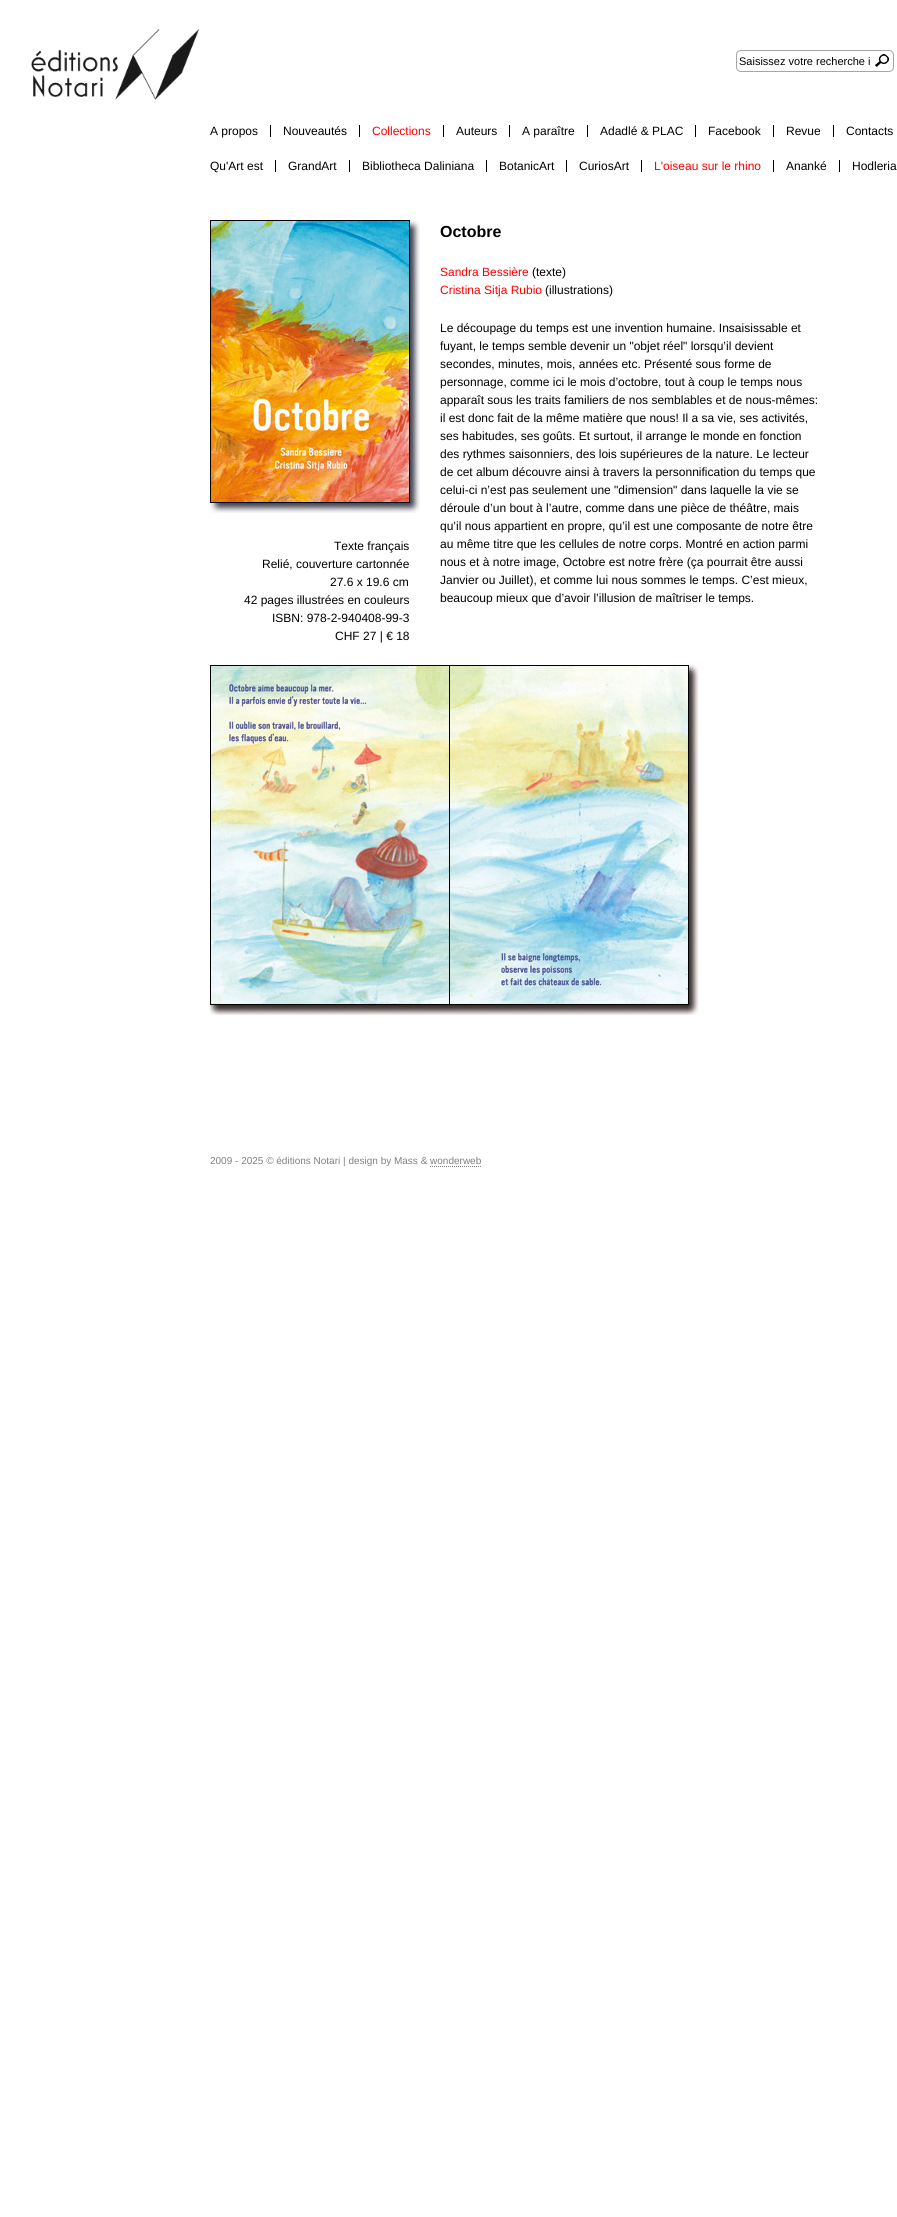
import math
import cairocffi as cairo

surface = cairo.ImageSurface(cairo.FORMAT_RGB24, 897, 2217)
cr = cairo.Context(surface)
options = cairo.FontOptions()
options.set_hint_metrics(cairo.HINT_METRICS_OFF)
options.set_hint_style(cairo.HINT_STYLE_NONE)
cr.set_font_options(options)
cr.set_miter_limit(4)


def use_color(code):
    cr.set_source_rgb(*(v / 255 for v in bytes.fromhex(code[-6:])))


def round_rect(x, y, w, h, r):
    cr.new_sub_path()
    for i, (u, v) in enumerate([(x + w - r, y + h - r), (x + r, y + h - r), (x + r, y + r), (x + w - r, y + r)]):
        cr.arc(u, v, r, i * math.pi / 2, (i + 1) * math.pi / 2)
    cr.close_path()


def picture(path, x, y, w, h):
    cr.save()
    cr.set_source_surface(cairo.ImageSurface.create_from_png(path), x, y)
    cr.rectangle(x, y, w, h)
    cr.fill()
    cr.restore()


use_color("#ffffff")
cr.paint()
picture("img1.png", 31, 28, 168, 72)
round_rect(736.5, 50.5, 157, 21, 4.5)
use_color("#a6a6a6")
cr.set_line_width(1)
cr.stroke()
cr.select_font_face("Liberation Sans")
cr.set_font_size(11)
use_color("#000000")
cr.move_to(739, 65)
cr.show_text("Saisissez votre recherche i")
picture("img2.png", 875, 54, 14, 13)
cr.rectangle(270, 125, 1, 12)
cr.fill()
cr.set_font_size(12)
cr.move_to(210, 135)
cr.show_text("A propos")
cr.rectangle(443, 125, 1, 12)
cr.fill()
use_color("#ff0000")
cr.move_to(372, 135)
cr.show_text("Collections")
use_color("#000000")
cr.rectangle(275, 160, 1, 12)
cr.fill()
cr.move_to(210, 170)
cr.show_text("Qu'Art est")
cr.rectangle(349, 160, 1, 12)
cr.fill()
cr.move_to(288, 170)
cr.show_text("GrandArt")
cr.rectangle(486, 160, 1, 12)
cr.fill()
cr.move_to(362, 170)
cr.show_text("Bibliotheca Daliniana")
cr.rectangle(566, 160, 1, 12)
cr.fill()
cr.move_to(499, 170)
cr.show_text("BotanicArt")
cr.rectangle(641, 160, 1, 12)
cr.fill()
cr.move_to(579, 170)
cr.show_text("CuriosArt")
cr.rectangle(773, 160, 1, 12)
cr.fill()
use_color("#ff0000")
cr.move_to(654, 170)
cr.show_text("L'oiseau sur le rhino")
use_color("#000000")
cr.rectangle(839, 160, 1, 12)
cr.fill()
cr.move_to(786, 170)
cr.show_text("Ananké")
cr.move_to(852, 170)
cr.show_text("Hodleria")
cr.rectangle(359, 125, 1, 12)
cr.fill()
cr.move_to(283, 135)
cr.show_text("Nouveautés")
cr.rectangle(509, 125, 1, 12)
cr.fill()
cr.move_to(456, 135)
cr.show_text("Auteurs")
cr.rectangle(587, 125, 1, 12)
cr.fill()
cr.move_to(522, 135)
cr.show_text("A paraître")
cr.rectangle(695, 125, 1, 12)
cr.fill()
cr.move_to(600, 135)
cr.show_text("Adadlé & PLAC")
cr.rectangle(773, 125, 1, 12)
cr.fill()
cr.move_to(708, 135)
cr.show_text("Facebook")
cr.rectangle(833, 125, 1, 12)
cr.fill()
cr.move_to(786, 135)
cr.show_text("Revue")
cr.move_to(846, 135)
cr.show_text("Contacts")
picture("img3.png", 210, 220, 210, 293)
cr.move_to(334, 550)
cr.show_text("Texte français")
cr.move_to(262, 568)
cr.show_text("Relié, couverture cartonnée")
cr.move_to(330, 586)
cr.show_text("27.6 x 19.6 cm")
cr.move_to(244, 604)
cr.show_text("42 pages illustrées en couleurs")
cr.move_to(272, 622)
cr.show_text("ISBN: 978-2-940408-99-3")
cr.move_to(335, 640)
cr.show_text("CHF 27 | € 18")
cr.select_font_face("Liberation Sans", cairo.FONT_SLANT_NORMAL, cairo.FONT_WEIGHT_BOLD)
cr.set_font_size(16)
cr.move_to(440, 237)
cr.show_text("Octobre")
cr.select_font_face("Liberation Sans")
cr.set_font_size(12)
use_color("#ff0000")
cr.move_to(440, 276)
cr.show_text("Sandra Bessière")
use_color("#000000")
cr.move_to(532, 276)
cr.show_text("(texte)")
use_color("#ff0000")
cr.move_to(440, 294)
cr.show_text("Cristina Sitja Rubio")
use_color("#000000")
cr.move_to(545, 294)
cr.show_text("(illustrations)")
cr.move_to(440, 332)
cr.show_text("Le découpage du temps est une invention humaine. Insaisissable et")
cr.move_to(440, 350)
cr.show_text("fuyant, le temps semble devenir un \"objet réel\" lorsqu’il devient")
cr.move_to(440, 368)
cr.show_text("secondes, minutes, mois, années etc. Présenté sous forme de")
cr.move_to(440, 386)
cr.show_text("personnage, comme ici le mois d’octobre, tout à coup le temps nous")
cr.move_to(440, 404)
cr.show_text("apparaît sous les traits familiers de nos semblables et de nous-mêmes:")
cr.move_to(440, 422)
cr.show_text("il est donc fait de la même matière que nous! Il a sa vie, ses activités,")
cr.move_to(440, 440)
cr.show_text("ses habitudes, ses goûts. Et surtout, il arrange le monde en fonction")
cr.move_to(440, 458)
cr.show_text("des rythmes saisonniers, des lois supérieures de la nature. Le lecteur")
cr.move_to(440, 476)
cr.show_text("de cet album découvre ainsi à travers la personnification du temps que")
cr.move_to(440, 494)
cr.show_text("celui-ci n’est pas seulement une \"dimension\" dans laquelle la vie se")
cr.move_to(440, 512)
cr.show_text("déroule d’un bout à l’autre, comme dans une pièce de théâtre, mais")
cr.move_to(440, 530)
cr.show_text("qu’il nous appartient en propre, qu’il est une composante de notre être")
cr.move_to(440, 548)
cr.show_text("au même titre que les cellules de notre corps. Montré en action parmi")
cr.move_to(440, 566)
cr.show_text("nous et à notre image, Octobre est notre frère (ça pourrait être aussi")
cr.move_to(440, 584)
cr.show_text("Janvier ou Juillet), et comme lui nous sommes le temps. C’est mieux,")
cr.move_to(440, 602)
cr.show_text("beaucoup mieux que d’avoir l’illusion de maîtriser le temps.")
picture("img4.png", 210, 665, 489, 350)
cr.set_font_size(10)
use_color("#808080")
cr.move_to(210, 1164)
cr.show_text("2009 - 2025 © éditions Notari | design by Mass & wonderweb")
cr.new_path()
cr.move_to(430, 1166.5)
cr.line_to(481, 1166.5)
cr.set_dash([1, 1])
cr.stroke()
surface.write_to_png("result.png")
